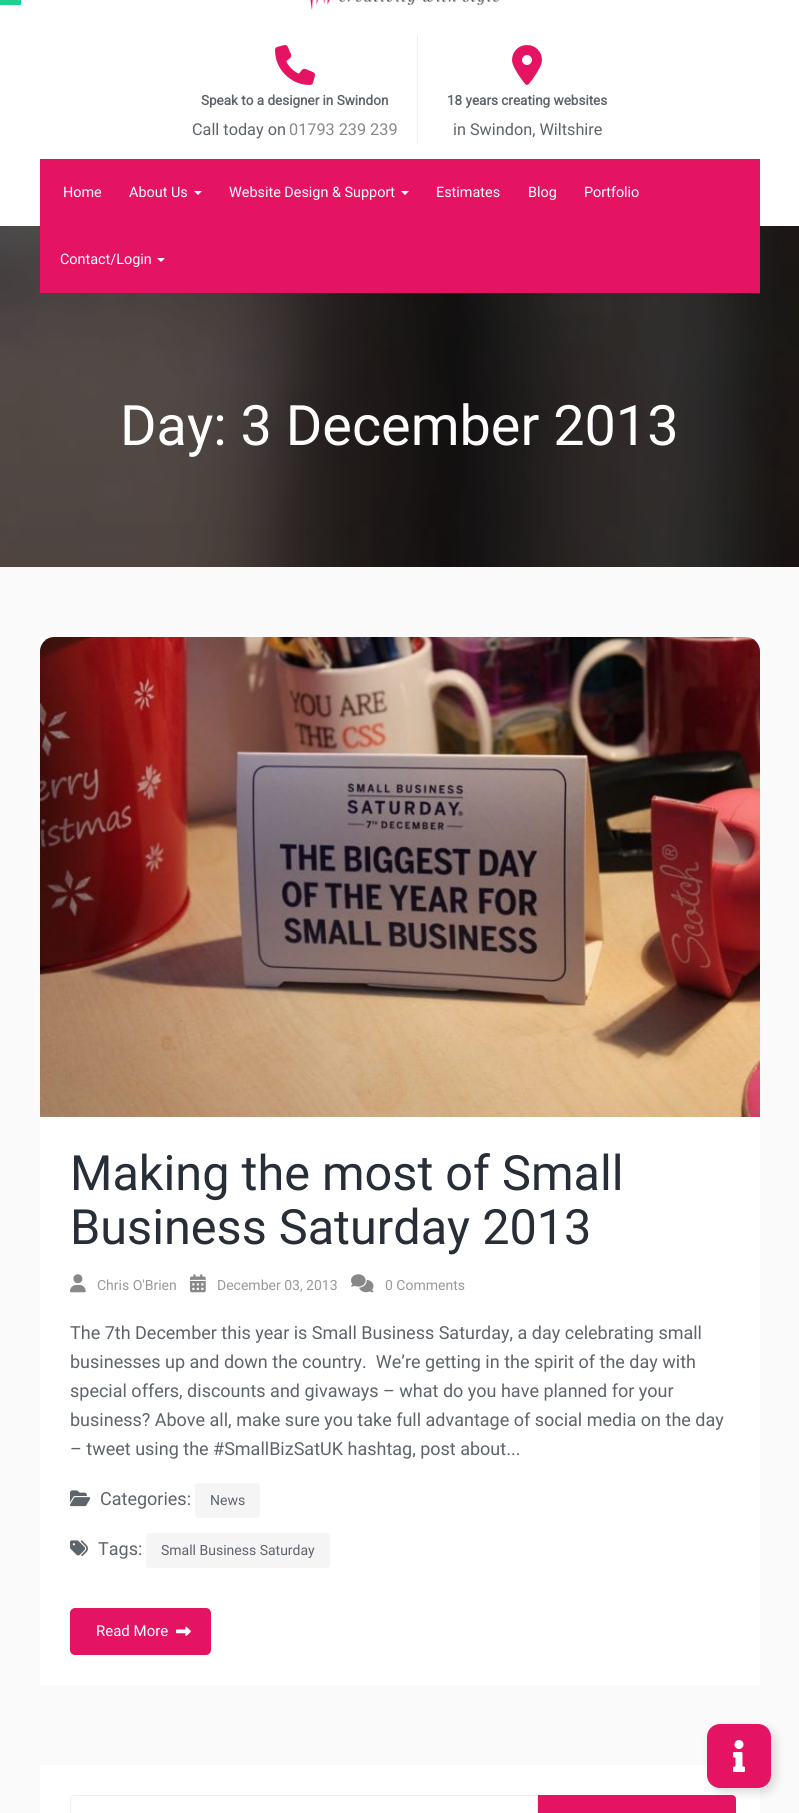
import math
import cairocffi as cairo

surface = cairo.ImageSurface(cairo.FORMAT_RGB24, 799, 1813)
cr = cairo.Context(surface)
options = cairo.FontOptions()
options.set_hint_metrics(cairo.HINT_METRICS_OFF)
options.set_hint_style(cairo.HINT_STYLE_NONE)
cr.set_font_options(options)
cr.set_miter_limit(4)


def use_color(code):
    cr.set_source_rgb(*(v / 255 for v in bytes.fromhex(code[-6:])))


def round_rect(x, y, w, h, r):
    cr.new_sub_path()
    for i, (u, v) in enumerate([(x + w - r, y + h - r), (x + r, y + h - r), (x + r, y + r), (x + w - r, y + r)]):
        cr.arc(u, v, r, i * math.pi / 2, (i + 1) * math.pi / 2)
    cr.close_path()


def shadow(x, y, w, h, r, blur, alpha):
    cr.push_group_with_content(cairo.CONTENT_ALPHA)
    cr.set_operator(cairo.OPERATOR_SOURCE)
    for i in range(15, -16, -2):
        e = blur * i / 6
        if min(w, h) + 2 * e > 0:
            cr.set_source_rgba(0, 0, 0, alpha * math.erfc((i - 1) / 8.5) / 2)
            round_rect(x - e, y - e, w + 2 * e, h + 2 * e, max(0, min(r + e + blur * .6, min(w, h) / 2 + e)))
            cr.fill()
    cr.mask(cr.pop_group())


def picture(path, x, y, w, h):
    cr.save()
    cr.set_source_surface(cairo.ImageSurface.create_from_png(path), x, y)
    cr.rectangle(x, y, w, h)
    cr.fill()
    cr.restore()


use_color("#ffffff")
cr.paint()
use_color("#1fd18e")
cr.rectangle(0, 0, 21, 5)
cr.fill()
picture("img1.png", 310, 0, 190, 10)
use_color("#eeeeee")
cr.rectangle(417, 35, 1, 109)
cr.fill()
picture("img2.png", 275, 45, 40, 40)
cr.select_font_face("Roboto", cairo.FONT_SLANT_NORMAL, cairo.FONT_WEIGHT_BOLD)
cr.set_font_size(13.5)
use_color("#5e646b")
cr.move_to(201, 105)
cr.show_text("Speak to a designer in Swindon")
cr.select_font_face("Roboto")
cr.set_font_size(16.25)
cr.move_to(192, 135)
cr.show_text("Call today on")
use_color("#888888")
cr.move_to(289, 135)
cr.show_text("01793 239 239")
picture("img3.png", 512, 45, 30, 40)
cr.select_font_face("Roboto", cairo.FONT_SLANT_NORMAL, cairo.FONT_WEIGHT_BOLD)
cr.set_font_size(13.5)
use_color("#5e646b")
cr.move_to(447, 105)
cr.show_text("18 years creating websites")
cr.select_font_face("Roboto")
cr.set_font_size(16.25)
cr.move_to(453, 135)
cr.show_text("in Swindon, Wiltshire")
picture("img4.png", 0, 226, 799, 341)
use_color("#e51463")
cr.rectangle(40, 159, 720, 134)
cr.fill()
cr.set_font_size(14.4)
use_color("#ffffff")
cr.move_to(63, 197)
cr.show_text("Home")
cr.move_to(129, 197)
cr.show_text("About Us")
cr.new_path()
cr.move_to(194, 191)
cr.line_to(202, 191)
cr.line_to(198, 195)
cr.close_path()
cr.fill()
cr.move_to(229, 197)
cr.show_text("Website Design & Support")
cr.new_path()
cr.move_to(401, 191)
cr.line_to(409, 191)
cr.line_to(405, 195)
cr.close_path()
cr.fill()
cr.move_to(436, 197)
cr.show_text("Estimates")
cr.move_to(528, 197)
cr.show_text("Blog")
cr.move_to(584, 197)
cr.show_text("Portfolio")
cr.move_to(60, 264)
cr.show_text("Contact/Login")
cr.new_path()
cr.move_to(157, 258)
cr.line_to(165, 258)
cr.line_to(161, 262)
cr.close_path()
cr.fill()
cr.set_font_size(55.75)
cr.move_to(120, 445)
cr.show_text("Day: 3 December 2013")
use_color("#fafafa")
cr.rectangle(0, 567, 799, 1246)
cr.fill()
use_color("#ffffff")
cr.rectangle(40, 637, 720, 1048)
cr.fill()
picture("img5.png", 40, 637, 720, 480)
cr.set_font_size(48.6)
use_color("#272e37")
cr.move_to(70, 1190)
cr.show_text("Making the most of Small")
cr.move_to(70, 1244)
cr.show_text("Business Saturday 2013")
picture("img6.png", 70, 1274, 16, 19)
cr.set_font_size(14)
use_color("#999999")
cr.move_to(97, 1290)
cr.show_text("Chris O'Brien")
picture("img7.png", 190, 1274, 16, 19)
cr.move_to(217, 1290)
cr.show_text("December 03, 2013")
picture("img8.png", 351, 1274, 23, 19)
cr.move_to(385, 1290)
cr.show_text("0 Comments")
cr.set_font_size(18)
use_color("#5e646b")
cr.move_to(70, 1339)
cr.show_text("The 7th December this year is Small Business Saturday, a day celebrating small")
cr.move_to(70, 1368)
cr.show_text("businesses up and down the country.  We’re getting in the spirit of the day with")
cr.move_to(70, 1397)
cr.show_text("special offers, discounts and givaways – what do you have planned for your")
cr.move_to(70, 1426)
cr.show_text("business? Above all, make sure you take full advantage of social media on the day")
cr.move_to(70, 1455)
cr.show_text("– tweet using the #SmallBizSatUK hashtag, post about...")
picture("img9.png", 70, 1490, 21, 17)
cr.move_to(100, 1505)
cr.show_text("Categories:")
use_color("#f5f5f5")
round_rect(195, 1483, 65, 35, 3)
cr.fill()
cr.set_font_size(14)
use_color("#5e646b")
cr.move_to(210, 1505)
cr.show_text("News")
picture("img10.png", 70, 1540, 18, 17)
cr.set_font_size(18)
cr.move_to(98, 1555)
cr.show_text("Tags:")
use_color("#f5f5f5")
round_rect(146, 1533, 184, 35, 3)
cr.fill()
cr.set_font_size(14)
use_color("#5e646b")
cr.move_to(161, 1555)
cr.show_text("Small Business Saturday")
use_color("#e51463")
round_rect(71, 1609, 139, 45, 4)
cr.fill_preserve()
cr.stroke()
cr.set_font_size(15)
use_color("#ffffff")
cr.move_to(96, 1636)
cr.show_text("Read More")
picture("img11.png", 176, 1626, 15, 10)
cr.rectangle(40, 1765, 720, 48)
cr.fill()
cr.new_path()
cr.move_to(74, 1795.5)
cr.line_to(537.5, 1795.5)
cr.line_to(537.5, 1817.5)
cr.line_to(74, 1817.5)
cr.curve_to(72, 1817.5, 70.5, 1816, 70.5, 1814)
cr.line_to(70.5, 1799)
cr.curve_to(70.5, 1797, 72, 1795.5, 74, 1795.5)
cr.close_path()
use_color("#eeeeee")
cr.set_line_width(1)
cr.stroke()
use_color("#e51463")
cr.new_path()
cr.move_to(538, 1795)
cr.line_to(732, 1795)
cr.curve_to(734, 1795, 736, 1797, 736, 1799)
cr.line_to(736, 1813)
cr.curve_to(736, 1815, 734, 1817, 732, 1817)
cr.line_to(538, 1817)
cr.close_path()
cr.fill()
use_color("#000000")
shadow(711, 1728, 64, 64, 13, 5, 0.15)
use_color("#e51463")
round_rect(707, 1724, 64, 64, 13)
cr.fill()
picture("img12.png", 733, 1740, 12, 32)
surface.write_to_png("result.png")
